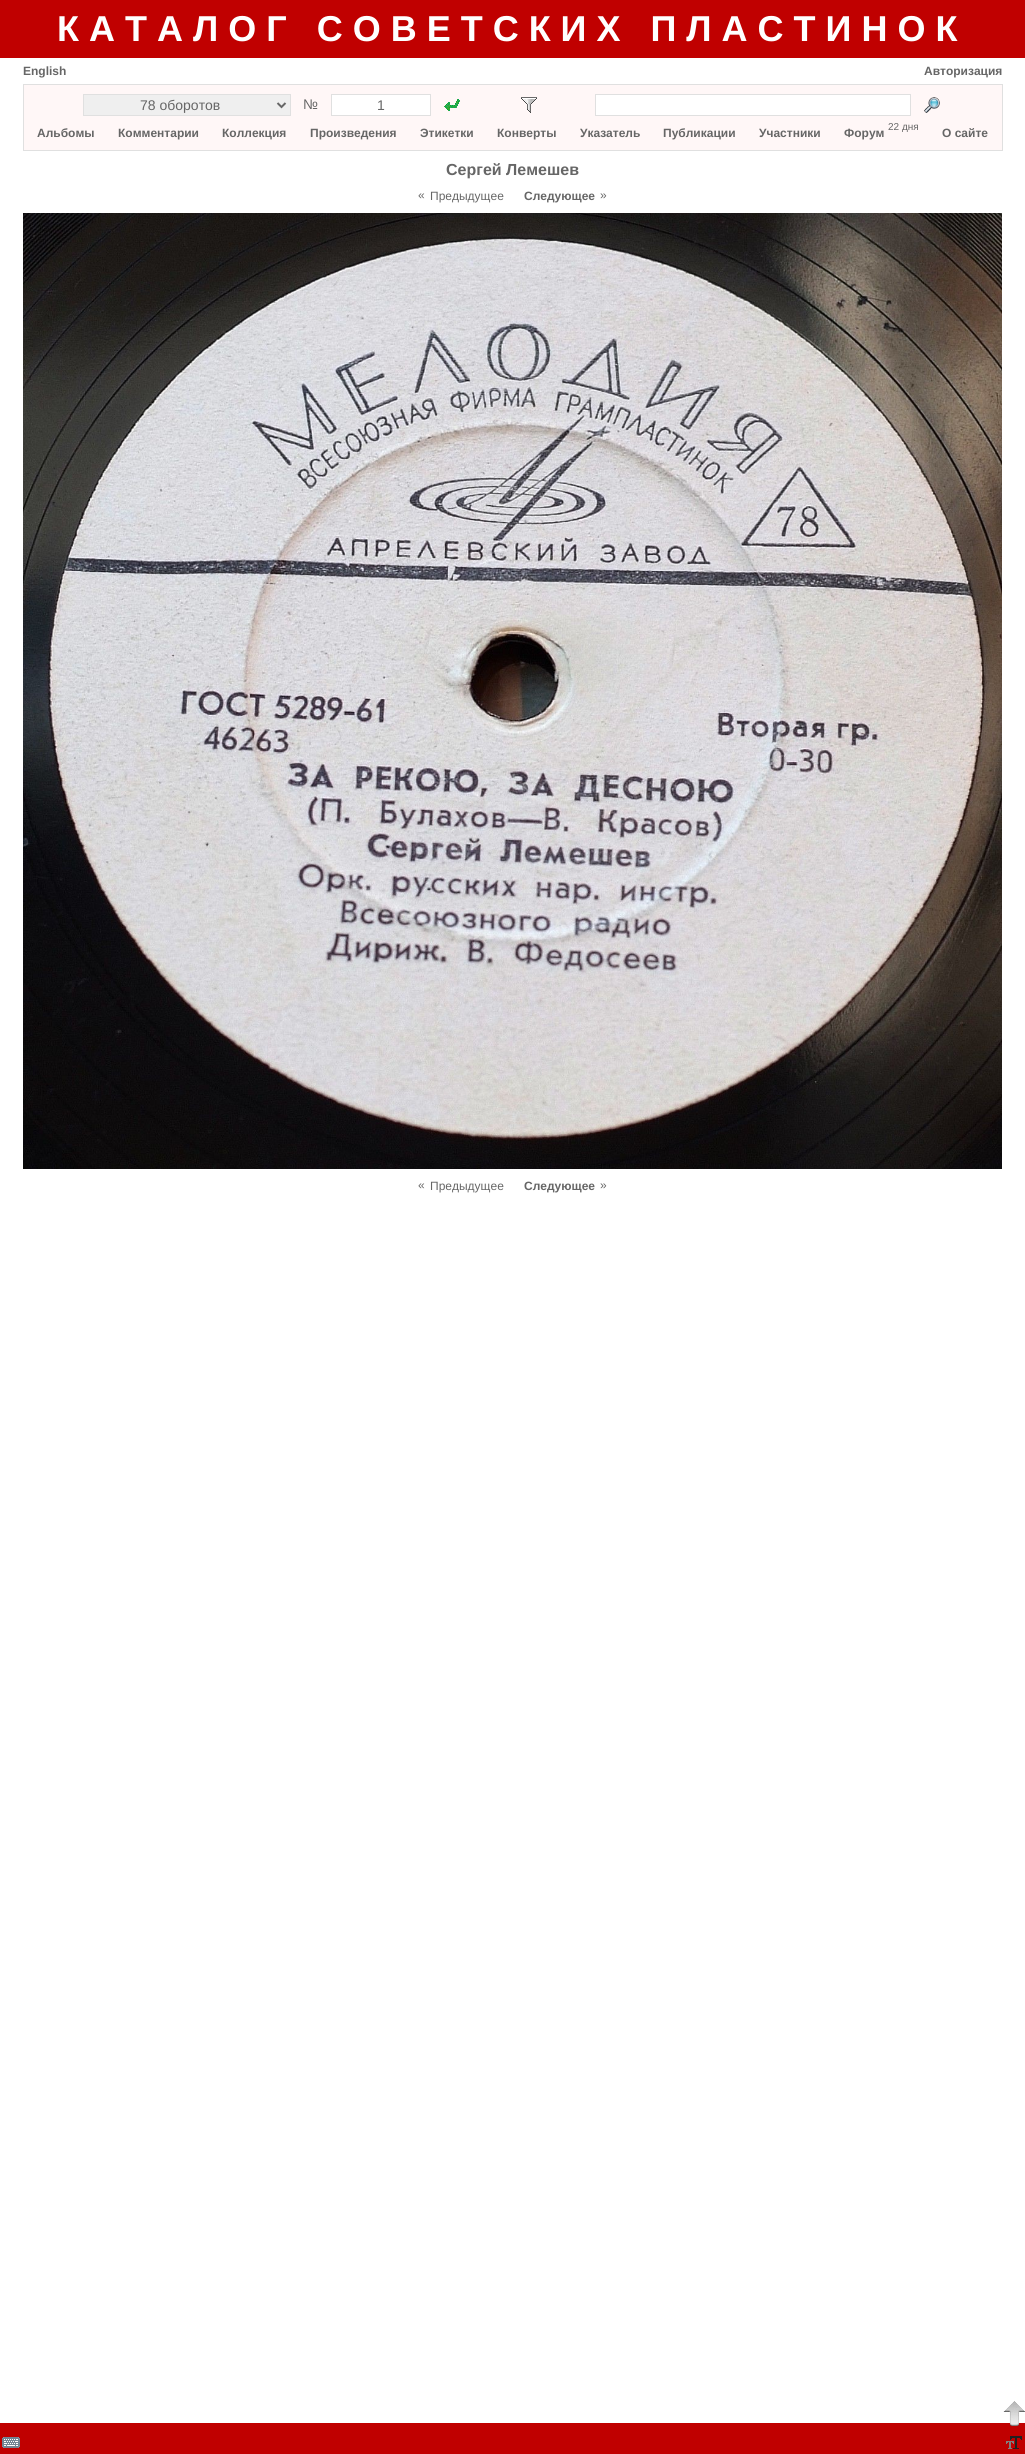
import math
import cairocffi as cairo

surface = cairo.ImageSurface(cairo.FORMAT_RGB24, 1025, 2454)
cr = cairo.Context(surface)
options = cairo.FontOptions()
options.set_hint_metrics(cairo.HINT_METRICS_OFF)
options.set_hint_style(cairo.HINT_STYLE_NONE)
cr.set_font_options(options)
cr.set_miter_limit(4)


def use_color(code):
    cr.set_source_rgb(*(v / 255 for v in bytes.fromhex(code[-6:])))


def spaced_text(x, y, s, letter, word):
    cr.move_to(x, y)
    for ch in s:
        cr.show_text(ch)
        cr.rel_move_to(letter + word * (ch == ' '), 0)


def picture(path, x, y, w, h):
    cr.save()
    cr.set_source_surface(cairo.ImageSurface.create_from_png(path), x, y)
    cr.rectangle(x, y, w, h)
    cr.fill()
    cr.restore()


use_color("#ffffff")
cr.paint()
use_color("#c00000")
cr.rectangle(0, 0, 1025, 58)
cr.fill()
cr.select_font_face("Liberation Sans", cairo.FONT_SLANT_NORMAL, cairo.FONT_WEIGHT_BOLD)
cr.set_font_size(36)
use_color("#ffffff")
spaced_text(57, 41, "КАТАЛОГ СОВЕТСКИХ ПЛАСТИНОК", 10, 0)
cr.set_font_size(12)
use_color("#666666")
cr.move_to(23, 75)
cr.show_text("English")
cr.move_to(924, 75)
cr.show_text("Авторизация")
use_color("#fff7f7")
cr.rectangle(23.5, 84.5, 979, 66)
cr.fill_preserve()
use_color("#e0e0e0")
cr.set_line_width(1)
cr.stroke()
use_color("#efefef")
cr.rectangle(83.5, 94.5, 207, 21)
cr.fill_preserve()
use_color("#e0e0e0")
cr.stroke()
cr.new_path()
cr.move_to(277.5, 103)
cr.line_to(281.5, 107)
cr.line_to(285.5, 103)
use_color("#666666")
cr.set_line_width(2)
cr.stroke()
cr.select_font_face("Liberation Sans")
cr.set_font_size(14)
cr.move_to(140, 110)
cr.show_text("78 оборотов")
cr.move_to(303, 109)
cr.show_text("№")
use_color("#ffffff")
cr.rectangle(331.5, 94.5, 99, 21)
cr.fill_preserve()
use_color("#e0e0e0")
cr.set_line_width(1)
cr.stroke()
use_color("#666666")
cr.move_to(377, 110)
cr.show_text("1")
picture("img1.png", 444, 99, 16, 12)
picture("img2.png", 521, 97, 16, 16)
use_color("#ffffff")
cr.rectangle(595.5, 94.5, 315, 21)
cr.fill_preserve()
use_color("#e0e0e0")
cr.stroke()
picture("img3.png", 924, 97, 16, 16)
cr.select_font_face("Liberation Sans", cairo.FONT_SLANT_NORMAL, cairo.FONT_WEIGHT_BOLD)
cr.set_font_size(12)
use_color("#666666")
cr.move_to(37, 137)
cr.show_text("Альбомы")
cr.move_to(118, 137)
cr.show_text("Комментарии")
cr.move_to(222, 137)
cr.show_text("Коллекция")
cr.move_to(310, 137)
cr.show_text("Произведения")
cr.move_to(420, 137)
cr.show_text("Этикетки")
cr.move_to(497, 137)
cr.show_text("Конверты")
cr.move_to(580, 137)
cr.show_text("Указатель")
cr.move_to(663, 137)
cr.show_text("Публикации")
cr.move_to(759, 137)
cr.show_text("Участники")
cr.move_to(844, 137)
cr.show_text("Форум")
cr.select_font_face("Liberation Sans")
cr.set_font_size(10)
cr.move_to(888, 130)
cr.show_text("22 дня")
cr.select_font_face("Liberation Sans", cairo.FONT_SLANT_NORMAL, cairo.FONT_WEIGHT_BOLD)
cr.set_font_size(12)
cr.move_to(942, 137)
cr.show_text("О сайте")
cr.set_font_size(16)
cr.move_to(446, 175)
cr.show_text("Сергей Лемешев")
cr.select_font_face("Liberation Sans")
cr.set_font_size(12)
cr.move_to(418, 199)
cr.show_text("«")
cr.move_to(430, 200)
cr.show_text("Предыдущее")
cr.select_font_face("Liberation Sans", cairo.FONT_SLANT_NORMAL, cairo.FONT_WEIGHT_BOLD)
cr.move_to(524, 200)
cr.show_text("Следующее")
cr.select_font_face("Liberation Sans")
cr.move_to(600, 199)
cr.show_text("»")
picture("img4.png", 23, 213, 979, 956)
cr.move_to(418, 1189)
cr.show_text("«")
cr.move_to(430, 1190)
cr.show_text("Предыдущее")
cr.select_font_face("Liberation Sans", cairo.FONT_SLANT_NORMAL, cairo.FONT_WEIGHT_BOLD)
cr.move_to(524, 1190)
cr.show_text("Следующее")
cr.select_font_face("Liberation Sans")
cr.move_to(600, 1189)
cr.show_text("»")
use_color("#c00000")
cr.rectangle(0, 2423, 1025, 31)
cr.fill()
picture("img5.png", 1003, 2401, 22, 25)
picture("img6.png", 2, 2437, 18, 11)
picture("img7.png", 1006, 2436, 16, 13)
surface.write_to_png("result.png")
